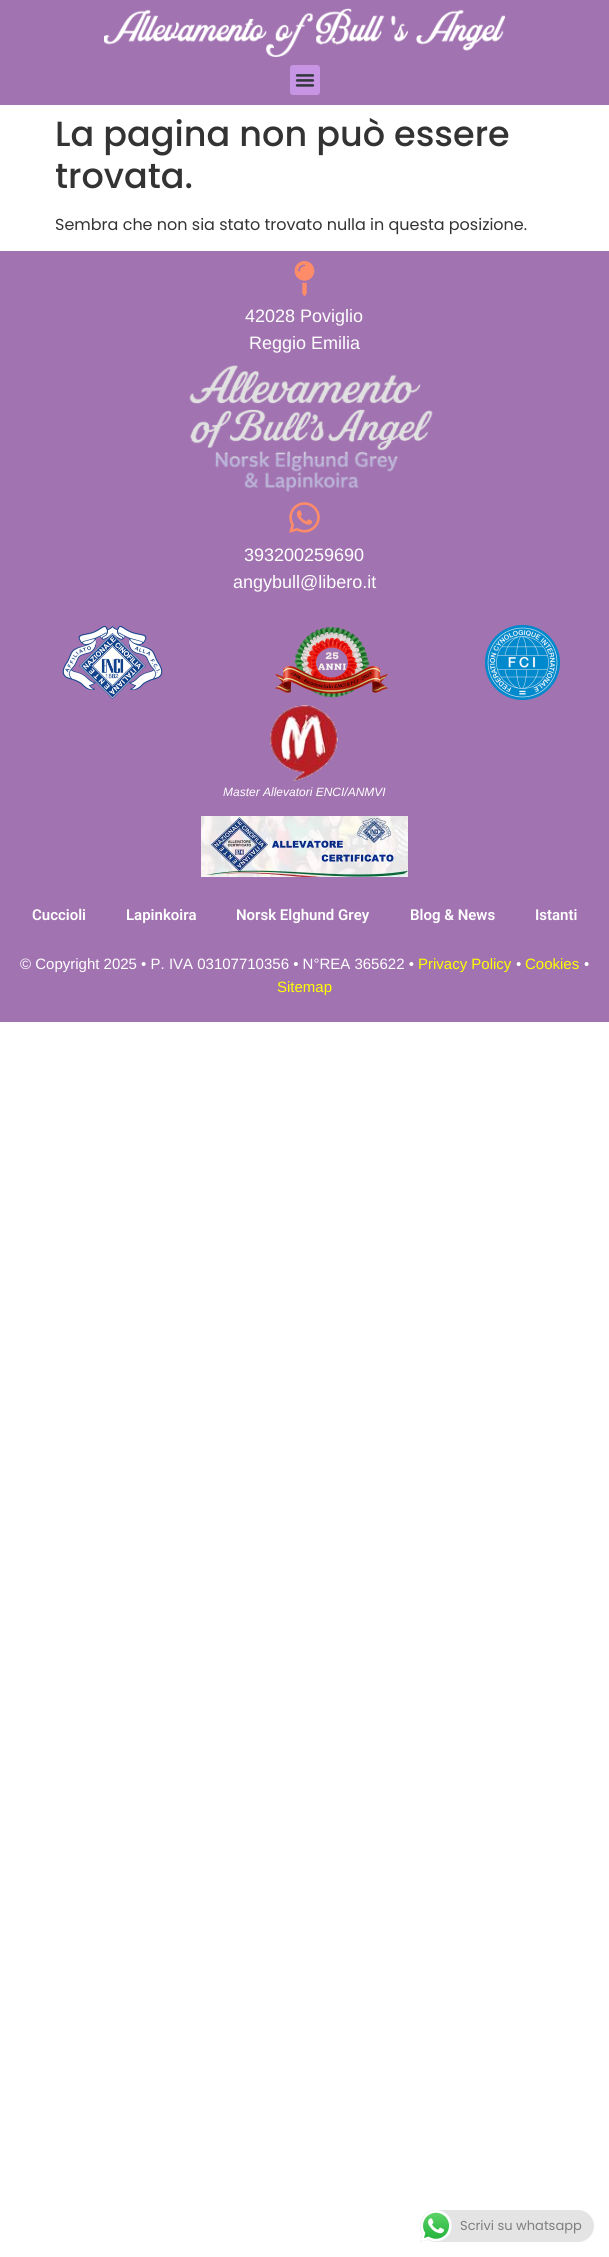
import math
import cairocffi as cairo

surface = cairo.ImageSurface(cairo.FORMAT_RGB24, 609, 2257)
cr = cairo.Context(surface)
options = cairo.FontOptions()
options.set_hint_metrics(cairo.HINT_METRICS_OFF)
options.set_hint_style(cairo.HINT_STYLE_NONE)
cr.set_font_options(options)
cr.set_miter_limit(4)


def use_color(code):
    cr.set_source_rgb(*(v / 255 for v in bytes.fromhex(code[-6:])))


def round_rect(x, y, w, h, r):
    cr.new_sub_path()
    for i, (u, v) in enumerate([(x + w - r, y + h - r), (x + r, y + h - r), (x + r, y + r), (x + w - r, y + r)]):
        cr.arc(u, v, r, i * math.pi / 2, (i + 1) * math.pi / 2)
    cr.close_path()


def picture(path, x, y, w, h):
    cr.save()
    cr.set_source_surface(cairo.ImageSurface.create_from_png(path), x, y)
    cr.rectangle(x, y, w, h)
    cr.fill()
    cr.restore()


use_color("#ffffff")
cr.paint()
use_color("#a273b1")
cr.rectangle(0, 0, 609, 105)
cr.fill()
picture("img1.png", 104, 8, 401, 49)
use_color("#c795e3")
round_rect(290, 65, 30, 30, 3)
cr.fill()
picture("img2.png", 295, 74, 20, 13)
cr.select_font_face("Poppins Medium")
cr.set_font_size(35)
use_color("#333333")
cr.move_to(55, 146)
cr.show_text("La pagina non può essere")
cr.move_to(55, 188)
cr.show_text("trovata.")
cr.select_font_face("Poppins")
cr.set_font_size(16)
cr.move_to(55, 230)
cr.show_text("Sembra che non sia stato trovato nulla in questa posizione.")
use_color("#a273b1")
cr.rectangle(0, 251, 609, 771)
cr.fill()
picture("img3.png", 294, 261, 21, 35)
cr.select_font_face("Liberation Sans")
cr.set_font_size(18)
use_color("#ffffff")
cr.move_to(245, 322)
cr.show_text("42028 Poviglio")
cr.move_to(249, 349)
cr.show_text("Reggio Emilia")
picture("img4.png", 189, 365, 244, 127)
picture("img5.png", 289, 502, 31, 31)
cr.move_to(244, 561)
cr.show_text("393200259690")
cr.move_to(233, 588)
cr.show_text("angybull@libero.it")
picture("img6.png", 62, 625, 101, 74)
picture("img7.png", 275, 627, 113, 71)
picture("img8.png", 485, 625, 75, 75)
picture("img9.png", 270, 705, 68, 76)
cr.select_font_face("Liberation Sans", cairo.FONT_SLANT_ITALIC)
cr.set_font_size(12)
cr.move_to(223, 796)
cr.show_text("Master Allevatori ENCI/ANMVI")
picture("img10.png", 201, 816, 207, 61)
cr.select_font_face("Roboto SemiBold")
cr.set_font_size(15)
cr.move_to(32, 920)
cr.show_text("Cuccioli")
cr.move_to(126, 920)
cr.show_text("Lapinkoira")
cr.move_to(236, 920)
cr.show_text("Norsk Elghund Grey")
cr.move_to(410, 920)
cr.show_text("Blog & News")
cr.move_to(535, 920)
cr.show_text("Istanti")
cr.select_font_face("Liberation Sans")
cr.move_to(20, 969)
cr.show_text("© Copyright 2025 • P. IVA 03107710356 • N°REA 365622 •")
use_color("#ffff00")
cr.move_to(418, 969)
cr.show_text("Privacy Policy")
use_color("#ffffff")
cr.move_to(516, 969)
cr.show_text("•")
use_color("#ffff00")
cr.move_to(525, 969)
cr.show_text("Cookies")
use_color("#ffffff")
cr.move_to(584, 969)
cr.show_text("•")
use_color("#ffff00")
cr.move_to(277, 992)
cr.show_text("Sitemap")
use_color("#e4e4e4")
round_rect(420, 2210, 174, 32, 16)
cr.fill()
picture("img11.png", 420, 2210, 32, 32)
cr.select_font_face("Poppins")
cr.set_font_size(13)
use_color("#7f7d7d")
cr.move_to(460, 2230)
cr.show_text("Scrivi su whatsapp")
surface.write_to_png("result.png")
